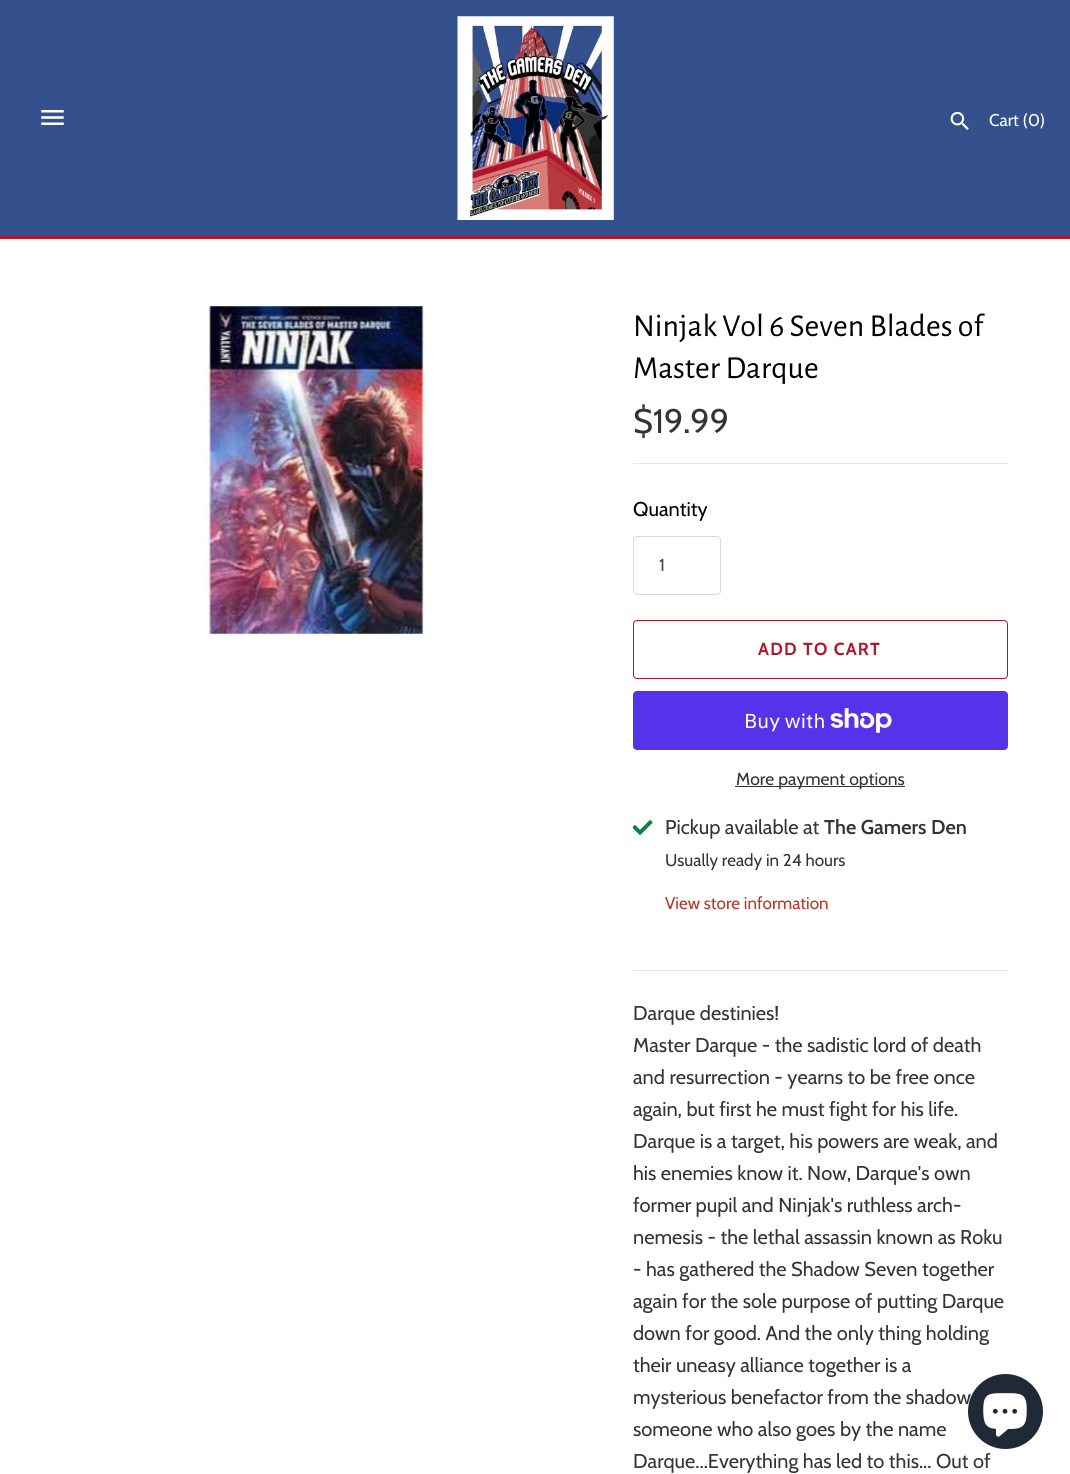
import math
import cairocffi as cairo

surface = cairo.ImageSurface(cairo.FORMAT_RGB24, 1070, 1474)
cr = cairo.Context(surface)
options = cairo.FontOptions()
options.set_hint_metrics(cairo.HINT_METRICS_OFF)
options.set_hint_style(cairo.HINT_STYLE_NONE)
cr.set_font_options(options)
cr.set_miter_limit(4)


def use_color(code):
    cr.set_source_rgb(*(v / 255 for v in bytes.fromhex(code[-6:])))


def spaced_text(x, y, s, letter, word):
    cr.move_to(x, y)
    for ch in s:
        cr.show_text(ch)
        cr.rel_move_to(letter + word * (ch == ' '), 0)


def round_rect(x, y, w, h, r):
    cr.new_sub_path()
    for i, (u, v) in enumerate([(x + w - r, y + h - r), (x + r, y + h - r), (x + r, y + r), (x + w - r, y + r)]):
        cr.arc(u, v, r, i * math.pi / 2, (i + 1) * math.pi / 2)
    cr.close_path()


def picture(path, x, y, w, h):
    cr.save()
    cr.set_source_surface(cairo.ImageSurface.create_from_png(path), x, y)
    cr.rectangle(x, y, w, h)
    cr.fill()
    cr.restore()


use_color("#ffffff")
cr.paint()
use_color("#34518d")
cr.rectangle(0, 0, 1070, 236)
cr.fill()
picture("img1.png", 41, 110, 23, 15)
picture("img2.png", 457, 16, 157, 204)
picture("img3.png", 950, 111, 19, 19)
cr.select_font_face("Cabin")
cr.set_font_size(17)
use_color("#ffffff")
cr.move_to(989, 126)
cr.show_text("Cart (0)")
use_color("#b1152b")
cr.rectangle(0, 236, 1070, 3)
cr.fill()
picture("img4.png", 204, 306, 222, 328)
cr.select_font_face("Alegreya Sans")
cr.set_font_size(32)
use_color("#000000")
cr.move_to(633, 336)
cr.show_text("Ninjak Vol 6 Seven Blades of")
cr.move_to(633, 378)
cr.show_text("Master Darque")
cr.select_font_face("Cabin")
cr.set_font_size(34)
use_color("#343434")
cr.move_to(633, 433)
cr.show_text("$19.99")
use_color("#e7e7e7")
cr.rectangle(633, 463, 375, 1)
cr.fill()
cr.set_font_size(20)
use_color("#000000")
cr.move_to(633, 516)
cr.show_text("Quantity")
round_rect(633.5, 536.5, 87, 58, 3.5)
use_color("#d9d9d9")
cr.set_line_width(1)
cr.stroke()
cr.set_font_size(17.5)
use_color("#444444")
cr.move_to(659, 571)
cr.show_text("1")
round_rect(633.5, 620.5, 374, 58, 3.5)
use_color("#b1152b")
cr.stroke()
cr.select_font_face("Cabin", cairo.FONT_SLANT_NORMAL, cairo.FONT_WEIGHT_BOLD)
spaced_text(758, 655, "ADD TO CART", 1.25, 0)
use_color("#5433eb")
round_rect(633, 691, 375, 59, 4)
cr.fill()
cr.select_font_face("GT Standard")
cr.set_font_size(20)
use_color("#ffffff")
cr.move_to(744, 728)
cr.show_text("Buy with")
picture("img5.png", 830, 708, 62, 25)
use_color("#343434")
cr.rectangle(735, 786, 170, 1)
cr.fill()
cr.select_font_face("Cabin")
cr.set_font_size(17.5)
cr.move_to(736, 785)
cr.show_text("More payment options")
picture("img6.png", 633, 820, 20, 15)
cr.set_font_size(20)
cr.move_to(665, 834)
cr.show_text("Pickup available at")
cr.select_font_face("Cabin SemiBold")
cr.move_to(824, 834)
cr.show_text("The Gamers Den")
cr.select_font_face("Cabin")
cr.set_font_size(17)
cr.move_to(665, 866)
cr.show_text("Usually ready in 24 hours")
use_color("#bb3428")
cr.move_to(665, 909)
cr.show_text("View store information")
use_color("#e7e7e7")
cr.rectangle(633, 970, 375, 1)
cr.fill()
cr.set_font_size(20)
use_color("#343434")
cr.move_to(633, 1020)
cr.show_text("Darque destinies!")
cr.move_to(633, 1052)
cr.show_text("Master Darque - the sadistic lord of death")
cr.move_to(633, 1084)
cr.show_text("and resurrection - yearns to be free once")
cr.move_to(633, 1116)
cr.show_text("again, but first he must fight for his life.")
cr.move_to(633, 1148)
cr.show_text("Darque is a target, his powers are weak, and")
cr.move_to(633, 1180)
cr.show_text("his enemies know it. Now, Darque's own")
cr.move_to(633, 1212)
cr.show_text("former pupil and Ninjak's ruthless arch-")
cr.move_to(633, 1244)
cr.show_text("nemesis - the lethal assassin known as Roku")
cr.move_to(633, 1276)
cr.show_text("- has gathered the Shadow Seven together")
cr.move_to(633, 1308)
cr.show_text("again for the sole purpose of putting Darque")
cr.move_to(633, 1340)
cr.show_text("down for good. And the only thing holding")
cr.move_to(633, 1372)
cr.show_text("their uneasy alliance together is a")
cr.move_to(633, 1404)
cr.show_text("mysterious benefactor from the shadow")
cr.move_to(633, 1436)
cr.show_text("someone who also goes by the name")
cr.move_to(633, 1468)
cr.show_text("Darque...Everything has led to this... Out of")
use_color("#202a36")
cr.new_path()
cr.arc(1005.5, 1411.5, 37.5, 0, 2 * math.pi)
cr.fill()
picture("img7.png", 983, 1393, 44, 44)
surface.write_to_png("result.png")
